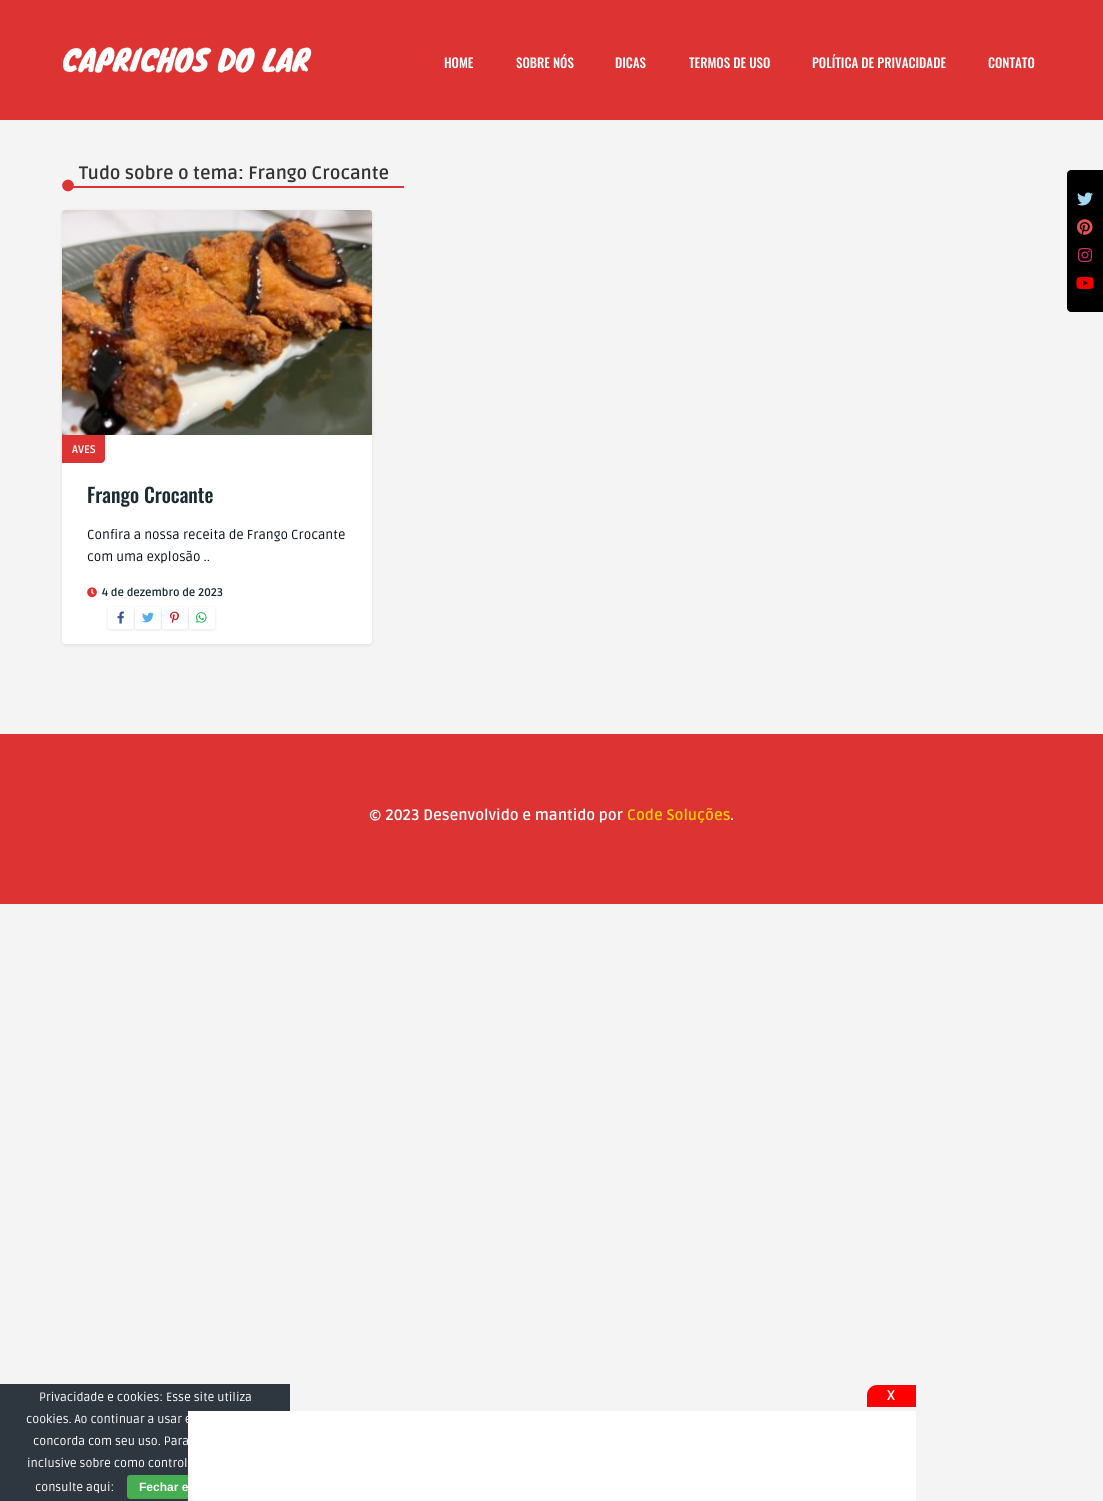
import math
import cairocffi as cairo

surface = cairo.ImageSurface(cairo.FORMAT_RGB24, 1103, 1501)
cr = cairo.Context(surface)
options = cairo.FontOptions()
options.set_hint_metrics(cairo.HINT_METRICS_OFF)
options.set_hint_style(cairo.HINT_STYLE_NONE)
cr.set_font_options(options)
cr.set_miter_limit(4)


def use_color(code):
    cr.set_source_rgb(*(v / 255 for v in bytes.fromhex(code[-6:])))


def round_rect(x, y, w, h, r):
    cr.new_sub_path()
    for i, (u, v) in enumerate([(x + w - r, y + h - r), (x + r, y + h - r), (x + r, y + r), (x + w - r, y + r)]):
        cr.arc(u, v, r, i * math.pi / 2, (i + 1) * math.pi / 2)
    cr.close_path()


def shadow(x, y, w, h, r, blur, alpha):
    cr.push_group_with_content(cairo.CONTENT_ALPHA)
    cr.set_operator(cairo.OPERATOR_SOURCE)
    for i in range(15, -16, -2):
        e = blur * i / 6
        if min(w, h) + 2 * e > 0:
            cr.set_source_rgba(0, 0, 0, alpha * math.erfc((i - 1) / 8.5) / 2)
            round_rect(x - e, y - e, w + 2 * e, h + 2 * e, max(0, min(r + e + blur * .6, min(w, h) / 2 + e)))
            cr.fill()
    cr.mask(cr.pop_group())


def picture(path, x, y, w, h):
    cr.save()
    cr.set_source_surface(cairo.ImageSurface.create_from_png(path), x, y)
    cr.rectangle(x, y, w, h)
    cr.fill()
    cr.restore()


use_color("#f4f4f4")
cr.paint()
use_color("#dd3333")
cr.rectangle(0, 0, 1103, 120)
cr.fill()
picture("img1.png", 63, 47, 249, 26)
cr.select_font_face("Oswald Medium")
cr.set_font_size(13)
use_color("#ffffff")
cr.move_to(444, 68)
cr.show_text("HOME")
cr.move_to(516, 68)
cr.show_text("SOBRE NÓS")
cr.move_to(615, 68)
cr.show_text("DICAS")
cr.move_to(689, 68)
cr.show_text("TERMOS DE USO")
cr.move_to(812, 68)
cr.show_text("POLÍTICA DE PRIVACIDADE")
cr.move_to(988, 68)
cr.show_text("CONTATO")
use_color("#dd3333")
cr.rectangle(73, 186, 331, 2)
cr.fill()
cr.select_font_face("Ruda", cairo.FONT_SLANT_NORMAL, cairo.FONT_WEIGHT_BOLD)
cr.set_font_size(18)
use_color("#333333")
cr.move_to(79, 179)
cr.show_text("Tudo sobre o tema: Frango Crocante")
picture("img2.png", 62, 179, 12, 13)
use_color("#000000")
shadow(62, 211, 310, 434, 3, 1.5, 0.1)
use_color("#ffffff")
round_rect(62, 210, 310, 434, 3)
cr.fill()
picture("img3.png", 62, 210, 310, 225)
use_color("#dd3333")
cr.new_path()
cr.move_to(62, 435)
cr.line_to(105, 435)
cr.line_to(105, 459)
cr.curve_to(105, 461, 103, 463, 101, 463)
cr.line_to(62, 463)
cr.close_path()
cr.fill()
cr.set_font_size(11)
use_color("#ffffff")
cr.move_to(72, 453)
cr.show_text("AVES")
cr.select_font_face("Oswald Medium")
cr.set_font_size(20)
use_color("#192b33")
cr.move_to(87, 503)
cr.show_text("Frango Crocante")
cr.select_font_face("Ruda")
cr.set_font_size(13)
use_color("#080e14")
cr.move_to(87, 539)
cr.show_text("Confira a nossa receita de Frango Crocante")
cr.move_to(87, 561)
cr.show_text("com uma explosão ..")
picture("img4.png", 87, 587, 10, 11)
cr.select_font_face("Ruda", cairo.FONT_SLANT_NORMAL, cairo.FONT_WEIGHT_BOLD)
cr.set_font_size(11)
use_color("#192b33")
cr.move_to(102, 596)
cr.show_text("4 de dezembro de 2023")
use_color("#000000")
shadow(108, 608, 26, 22, 2, 1.5, 0.1)
use_color("#ffffff")
round_rect(108, 607, 26, 22, 2)
cr.fill()
picture("img5.png", 117, 611, 7, 13)
use_color("#000000")
shadow(135, 608, 26, 22, 2, 1.5, 0.1)
use_color("#ffffff")
round_rect(135, 607, 26, 22, 2)
cr.fill()
picture("img6.png", 142, 612, 12, 11)
use_color("#000000")
shadow(162, 608, 26, 22, 2, 1.5, 0.1)
use_color("#ffffff")
round_rect(162, 607, 26, 22, 2)
cr.fill()
picture("img7.png", 170, 611, 9, 13)
use_color("#000000")
shadow(189, 608, 26, 22, 2, 1.5, 0.1)
use_color("#ffffff")
round_rect(189, 607, 26, 22, 2)
cr.fill()
picture("img8.png", 196, 612, 11, 11)
use_color("#000000")
cr.new_path()
cr.move_to(1071, 170)
cr.line_to(1103, 170)
cr.line_to(1103, 312)
cr.line_to(1071, 312)
cr.curve_to(1069, 312, 1067, 310, 1067, 308)
cr.line_to(1067, 174)
cr.curve_to(1067, 172, 1069, 170, 1071, 170)
cr.close_path()
cr.fill()
picture("img9.png", 1077, 192, 16, 14)
picture("img10.png", 1077, 219, 16, 16)
picture("img11.png", 1078, 248, 15, 14)
picture("img12.png", 1076, 277, 18, 12)
use_color("#dd3333")
cr.rectangle(0, 734, 1103, 170)
cr.fill()
cr.set_font_size(15)
use_color("#ffffff")
cr.move_to(369, 820)
cr.show_text("© 2023 Desenvolvido e mantido por")
use_color("#ffcc00")
cr.move_to(627, 820)
cr.show_text("Code Soluções")
use_color("#ffffff")
cr.move_to(730, 820)
cr.show_text(".")
use_color("#2e363f")
cr.rectangle(0, 1384, 290, 117)
cr.fill()
cr.select_font_face("Ruda")
cr.set_font_size(12)
use_color("#ffffff")
cr.move_to(39, 1401)
cr.show_text("Privacidade e cookies: Esse site utiliza")
cr.move_to(26, 1423)
cr.show_text("cookies. Ao continuar a usar e")
cr.move_to(33, 1445)
cr.show_text("concorda com seu uso. Para")
cr.move_to(27, 1467)
cr.show_text("inclusive sobre como control")
cr.move_to(35, 1491)
cr.show_text("consulte aqui:")
use_color("#45ae52")
round_rect(127, 1475, 118, 24, 3)
cr.fill()
cr.select_font_face("Liberation Sans", cairo.FONT_SLANT_NORMAL, cairo.FONT_WEIGHT_BOLD)
use_color("#ffffff")
cr.move_to(139, 1491)
cr.show_text("Fechar e")
cr.rectangle(188, 1411, 728, 90)
cr.fill()
use_color("#ff0000")
cr.new_path()
cr.move_to(877, 1385)
cr.line_to(916, 1385)
cr.line_to(916, 1407)
cr.line_to(867, 1407)
cr.line_to(867, 1395)
cr.curve_to(867, 1389.5, 871.5, 1385, 877, 1385)
cr.close_path()
cr.fill()
cr.select_font_face("Ruda", cairo.FONT_SLANT_NORMAL, cairo.FONT_WEIGHT_BOLD)
cr.set_font_size(14)
use_color("#ffffff")
cr.move_to(887, 1400)
cr.show_text("X")
surface.write_to_png("result.png")
